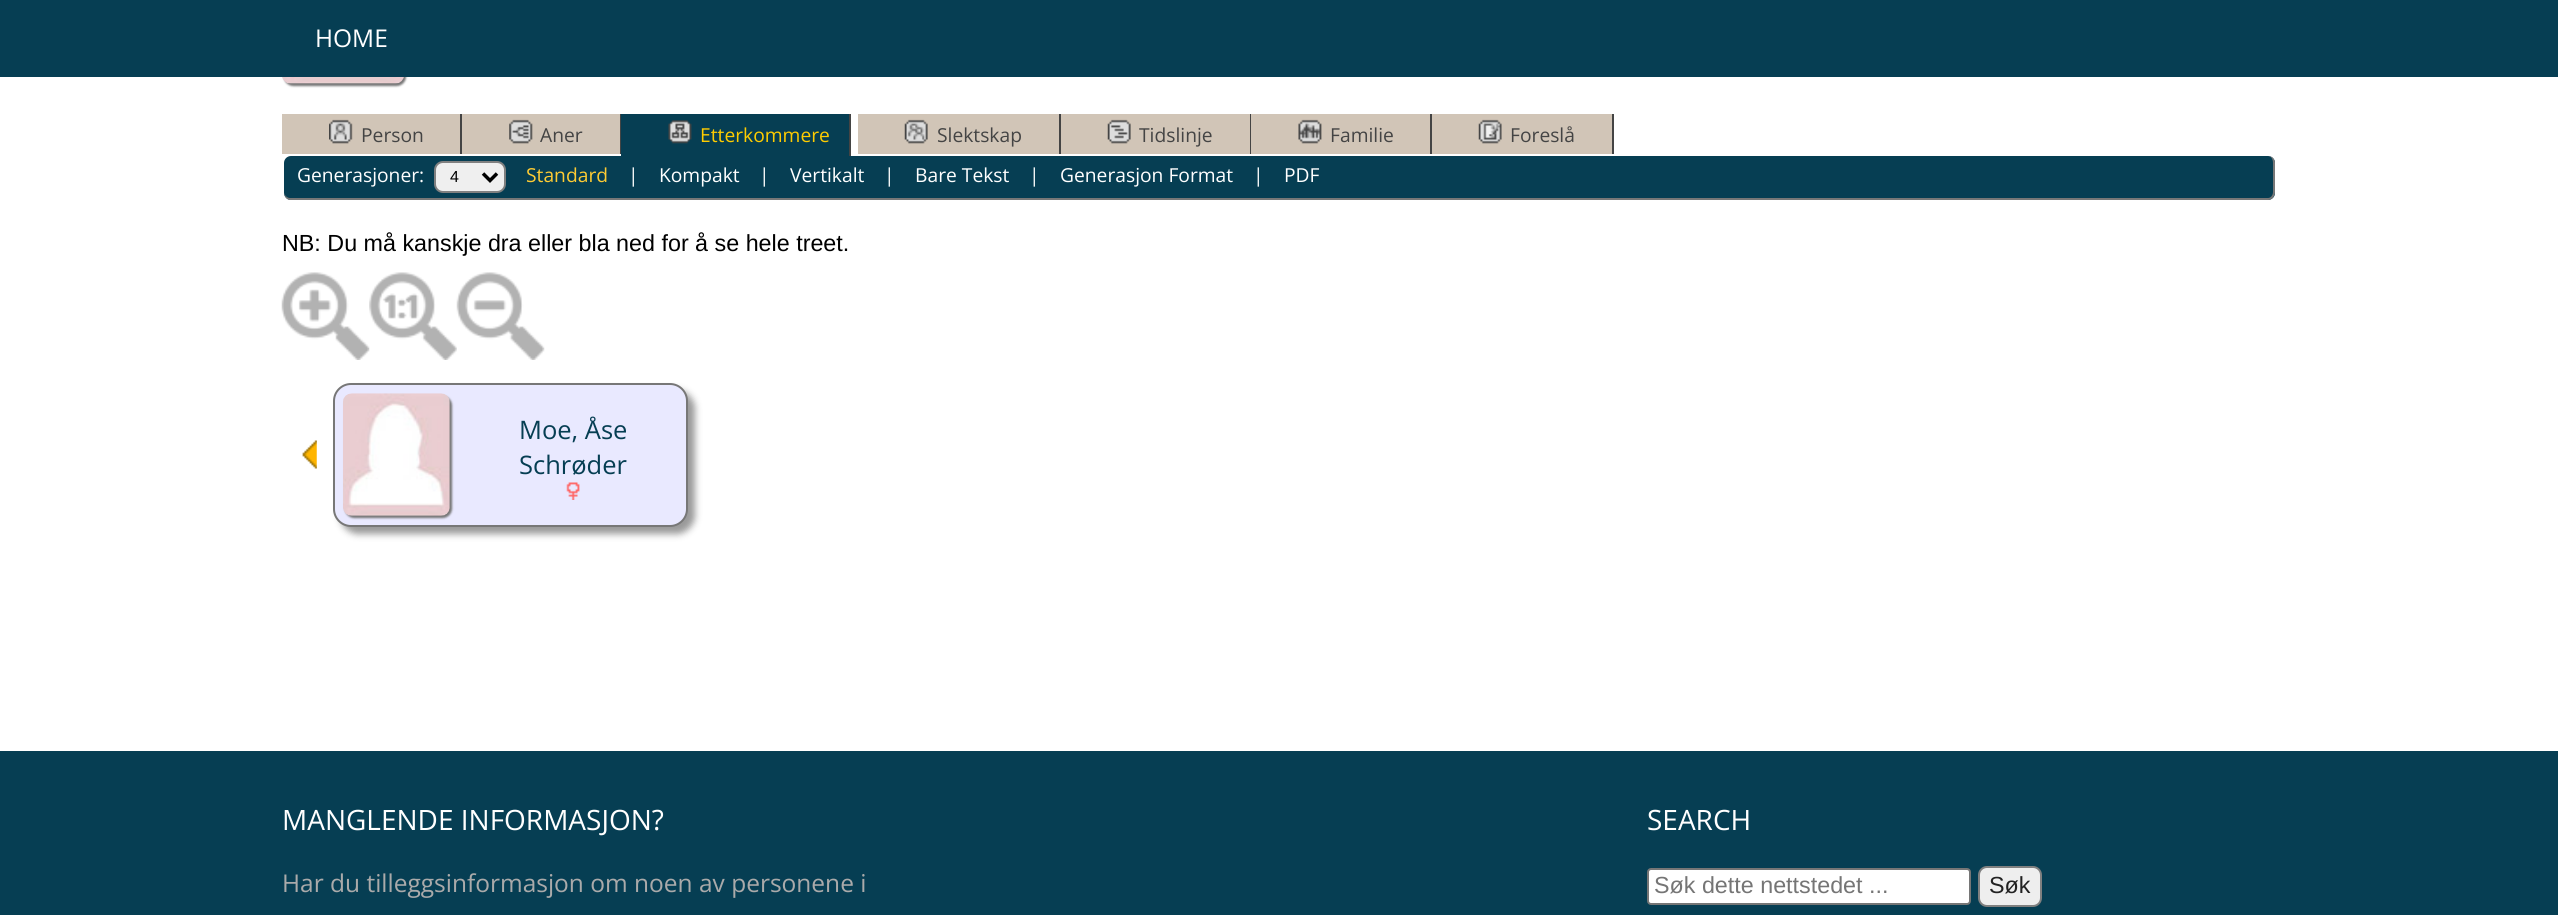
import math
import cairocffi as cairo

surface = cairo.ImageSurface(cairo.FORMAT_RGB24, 2558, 915)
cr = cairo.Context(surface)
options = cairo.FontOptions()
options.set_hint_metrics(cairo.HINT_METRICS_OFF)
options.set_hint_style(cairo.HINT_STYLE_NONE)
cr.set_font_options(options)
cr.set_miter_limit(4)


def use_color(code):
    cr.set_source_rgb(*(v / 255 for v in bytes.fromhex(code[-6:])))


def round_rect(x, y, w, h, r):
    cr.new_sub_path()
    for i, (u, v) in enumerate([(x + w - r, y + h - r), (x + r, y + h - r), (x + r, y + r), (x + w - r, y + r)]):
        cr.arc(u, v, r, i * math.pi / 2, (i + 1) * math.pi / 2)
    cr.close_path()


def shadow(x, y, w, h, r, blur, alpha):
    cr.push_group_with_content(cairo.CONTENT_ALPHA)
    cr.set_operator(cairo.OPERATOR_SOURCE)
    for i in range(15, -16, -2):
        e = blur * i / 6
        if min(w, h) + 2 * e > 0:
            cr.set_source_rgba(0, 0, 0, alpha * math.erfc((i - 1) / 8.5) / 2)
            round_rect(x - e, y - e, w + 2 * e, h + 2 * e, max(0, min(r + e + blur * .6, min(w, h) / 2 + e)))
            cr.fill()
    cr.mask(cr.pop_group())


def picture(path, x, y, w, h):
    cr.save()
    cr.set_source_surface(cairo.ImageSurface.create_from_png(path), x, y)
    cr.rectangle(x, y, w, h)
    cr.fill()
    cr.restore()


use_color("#ffffff")
cr.paint()
use_color("#777777")
shadow(284, -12, 122, 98, 9, 1, 1)
use_color("#063e53")
cr.rectangle(0, 0, 2558, 77)
cr.fill()
cr.select_font_face("Open Sans")
cr.set_font_size(24.5)
use_color("#ffffff")
cr.move_to(315, 47)
cr.show_text("HOME")
picture("img1.png", 282, 77, 122, 7)
use_color("#d1c5b7")
cr.rectangle(282, 114, 178, 40)
cr.fill()
use_color("#444444")
cr.rectangle(460, 114, 2, 40)
cr.fill()
picture("img2.png", 329, 119, 24, 25)
cr.set_font_size(19.25)
cr.move_to(361, 142)
cr.show_text("Person")
use_color("#d1c5b7")
cr.rectangle(462, 114, 158, 40)
cr.fill()
use_color("#444444")
cr.rectangle(620, 114, 1, 40)
cr.fill()
picture("img3.png", 509, 119, 24, 25)
cr.move_to(540, 142)
cr.show_text("Aner")
use_color("#063e53")
cr.rectangle(621, 114, 228, 42)
cr.fill()
use_color("#444444")
cr.rectangle(849, 114, 2, 42)
cr.fill()
picture("img4.png", 668, 120, 24, 24)
use_color("#ffcc00")
cr.move_to(700, 142)
cr.show_text("Etterkommere")
use_color("#d1c5b7")
cr.rectangle(858, 114, 201, 40)
cr.fill()
use_color("#444444")
cr.rectangle(1059, 114, 2, 40)
cr.fill()
picture("img5.png", 904, 119, 24, 25)
cr.move_to(937, 142)
cr.show_text("Slektskap")
use_color("#d1c5b7")
cr.rectangle(1061, 114, 189, 40)
cr.fill()
use_color("#444444")
cr.rectangle(1250, 114, 1, 40)
cr.fill()
picture("img6.png", 1107, 119, 24, 25)
cr.move_to(1139, 142)
cr.show_text("Tidslinje")
use_color("#d1c5b7")
cr.rectangle(1251, 114, 179, 40)
cr.fill()
use_color("#444444")
cr.rectangle(1430, 114, 2, 40)
cr.fill()
picture("img7.png", 1298, 119, 24, 25)
cr.move_to(1330, 142)
cr.show_text("Familie")
use_color("#d1c5b7")
cr.rectangle(1432, 114, 180, 40)
cr.fill()
use_color("#444444")
cr.rectangle(1612, 114, 2, 40)
cr.fill()
picture("img8.png", 1478, 119, 24, 25)
cr.move_to(1510, 142)
cr.show_text("Foreslå")
use_color("#063e53")
round_rect(284, 156, 1991, 44, 7)
cr.fill()
use_color("#777777")
cr.set_fill_rule(cairo.FILL_RULE_EVEN_ODD)
cr.new_path()
cr.move_to(290, 156)
cr.line_to(2268, 156)
cr.curve_to(2272, 156, 2275, 159, 2275, 163)
cr.line_to(2275, 192)
cr.curve_to(2275, 196, 2272, 200, 2268, 200)
cr.line_to(290, 200)
cr.curve_to(287, 200, 284, 196, 284, 192)
cr.line_to(284, 163)
cr.curve_to(284, 159, 287, 156, 290, 156)
cr.close_path()
cr.move_to(290, 156)
cr.line_to(2268, 156)
cr.curve_to(2271, 156, 2273, 159, 2273, 163)
cr.line_to(2273, 192)
cr.curve_to(2273, 195, 2271, 198, 2268, 198)
cr.line_to(290, 198)
cr.curve_to(287, 198, 284, 195, 284, 192)
cr.line_to(284, 163)
cr.curve_to(284, 159, 287, 156, 290, 156)
cr.close_path()
cr.fill()
use_color("#ffffff")
cr.move_to(297, 182)
cr.show_text("Generasjoner:")
use_color("#efefef")
round_rect(435, 162, 70, 30, 8)
cr.fill_preserve()
use_color("#808080")
cr.stroke()
cr.new_path()
cr.move_to(483, 173.5)
cr.line_to(490, 180.5)
cr.line_to(497, 173.5)
use_color("#000000")
cr.set_line_width(3.5)
cr.stroke()
cr.select_font_face("Liberation Sans")
cr.set_font_size(16)
cr.move_to(450, 182)
cr.show_text("4")
cr.select_font_face("Open Sans")
cr.set_font_size(19.25)
use_color("#ffcc33")
cr.move_to(526, 182)
cr.show_text("Standard")
use_color("#ffffff")
cr.move_to(628, 182)
cr.show_text("|")
cr.move_to(659, 182)
cr.show_text("Kompakt")
cr.move_to(759, 182)
cr.show_text("|")
cr.move_to(790, 182)
cr.show_text("Vertikalt")
cr.move_to(884, 182)
cr.show_text("|")
cr.move_to(915, 182)
cr.show_text("Bare Tekst")
cr.move_to(1029, 182)
cr.show_text("|")
cr.move_to(1060, 182)
cr.show_text("Generasjon Format")
cr.move_to(1253, 182)
cr.show_text("|")
cr.move_to(1284, 182)
cr.show_text("PDF")
cr.select_font_face("Liberation Sans")
cr.set_font_size(23.3)
use_color("#000000")
cr.move_to(282, 251)
cr.show_text("NB: Du må kanskje dra eller bla ned for å se hele treet.")
picture("img9.png", 281, 272, 89, 88)
picture("img10.png", 369, 272, 88, 88)
picture("img11.png", 456, 272, 89, 88)
picture("img12.png", 302, 440, 15, 29)
use_color("#999999")
shadow(340, 390, 355, 144, 18, 3.5, 1)
use_color("#e9e9ff")
round_rect(334, 384, 353, 142, 17)
cr.fill_preserve()
use_color("#777777")
cr.set_line_width(2)
cr.stroke()
use_color("#777777")
shadow(345, 396, 107, 122, 9, 1, 1)
picture("img13.png", 343, 393, 107, 123)
cr.select_font_face("Open Sans")
cr.set_font_size(25.5)
use_color("#063e53")
cr.move_to(519, 439)
cr.show_text("Moe, Åse")
cr.move_to(519, 474)
cr.show_text("Schrøder")
picture("img14.png", 566, 482, 14, 18)
cr.rectangle(0, 751, 2558, 164)
cr.fill()
cr.set_font_size(28)
use_color("#ffffff")
cr.move_to(282, 830)
cr.show_text("MANGLENDE INFORMASJON?")
cr.set_font_size(24.5)
use_color("#aaaaaa")
cr.move_to(282, 892)
cr.show_text("Har du tilleggsinformasjon om noen av personene i")
cr.set_font_size(28)
use_color("#ffffff")
cr.move_to(1647, 830)
cr.show_text("SEARCH")
round_rect(1648, 869, 322, 35, 3)
cr.fill_preserve()
use_color("#767676")
cr.stroke()
cr.select_font_face("Liberation Sans")
cr.set_font_size(23.3)
use_color("#757575")
cr.move_to(1654, 893)
cr.show_text("Søk dette nettstedet ...")
use_color("#eeeeee")
round_rect(1979, 867, 62, 39, 8)
cr.fill_preserve()
use_color("#808080")
cr.stroke()
use_color("#222222")
cr.move_to(1989, 893)
cr.show_text("Søk")
surface.write_to_png("result.png")
